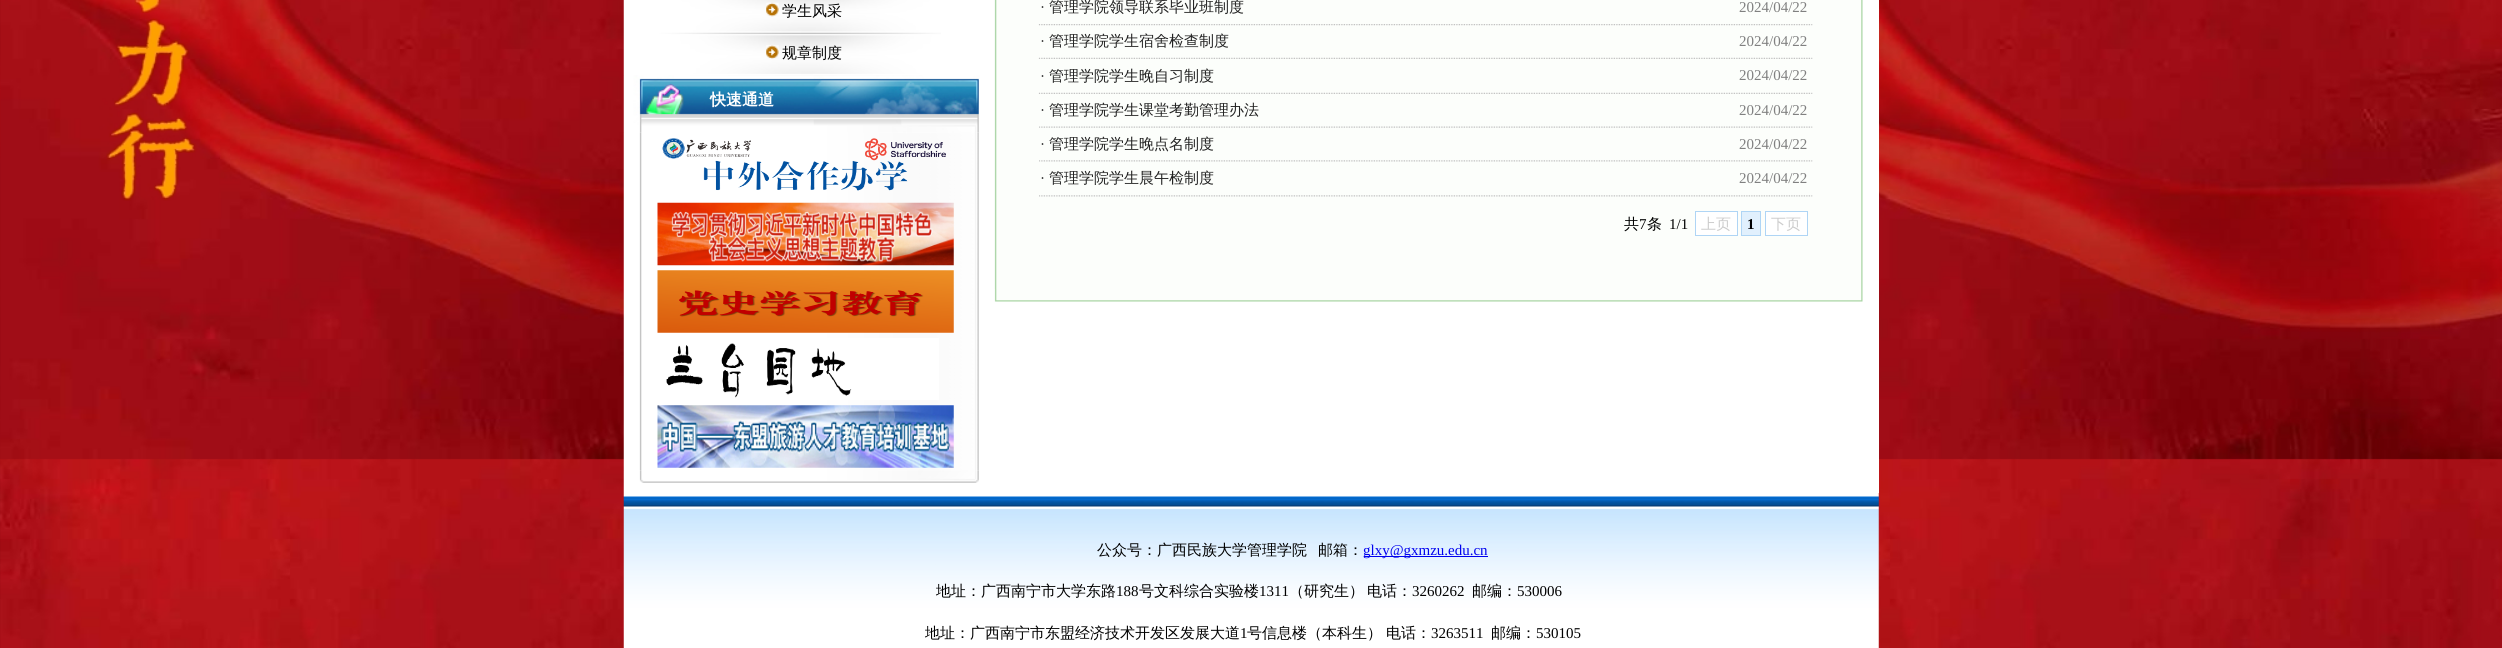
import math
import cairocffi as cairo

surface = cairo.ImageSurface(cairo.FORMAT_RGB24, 2502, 648)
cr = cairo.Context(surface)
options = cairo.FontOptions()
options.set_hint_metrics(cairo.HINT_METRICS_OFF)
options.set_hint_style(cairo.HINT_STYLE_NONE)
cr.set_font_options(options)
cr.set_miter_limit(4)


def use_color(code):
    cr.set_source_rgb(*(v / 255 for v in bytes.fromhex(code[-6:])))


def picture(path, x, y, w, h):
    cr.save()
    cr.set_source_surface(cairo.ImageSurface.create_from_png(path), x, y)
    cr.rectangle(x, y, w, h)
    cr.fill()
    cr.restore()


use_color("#ffffff")
cr.paint()
picture("img1.png", 0, 0, 2502, 648)
use_color("#ffffff")
cr.rectangle(624, 0, 1255, 493)
cr.fill()
picture("img2.png", 623, 0, 318, 76)
picture("img3.png", 766, 2, 13, 15)
cr.select_font_face("WenQuanYi Zen Hei Medium")
cr.set_font_size(15)
use_color("#000000")
cr.move_to(782, 16)
cr.show_text("学生风采")
picture("img4.png", 766, 45, 13, 14)
cr.move_to(782, 58)
cr.show_text("规章制度")
picture("img5.png", 623, 75, 357, 58)
cr.select_font_face("WenQuanYi Zen Hei", cairo.FONT_SLANT_NORMAL, cairo.FONT_WEIGHT_BOLD)
cr.set_font_size(16)
use_color("#ffffff")
cr.move_to(710, 105)
cr.show_text("快速通道")
picture("img6.png", 623, 132, 356, 339)
picture("img7.png", 662, 138, 284, 53)
picture("img8.png", 657, 202, 297, 64)
picture("img9.png", 657, 270, 297, 63)
picture("img10.png", 666, 338, 273, 62)
picture("img11.png", 657, 405, 297, 63)
picture("img12.png", 623, 470, 356, 23)
picture("img13.png", 994, 0, 869, 289)
cr.select_font_face("Liberation Serif")
cr.set_font_size(15)
use_color("#222222")
cr.move_to(1040, 12)
cr.show_text("·")
cr.select_font_face("WenQuanYi Zen Hei Medium")
cr.move_to(1049, 12)
cr.show_text("管理学院领导联系毕业班制度")
cr.select_font_face("Liberation Serif")
use_color("#808080")
cr.move_to(1739, 12)
cr.show_text("2024/04/22")
picture("img14.png", 1038, 24, 775, 2)
use_color("#222222")
cr.move_to(1040, 46)
cr.show_text("·")
cr.select_font_face("WenQuanYi Zen Hei Medium")
cr.move_to(1049, 46)
cr.show_text("管理学院学生宿舍检查制度")
cr.select_font_face("Liberation Serif")
use_color("#808080")
cr.move_to(1739, 46)
cr.show_text("2024/04/22")
picture("img15.png", 1038, 57, 775, 2)
use_color("#222222")
cr.move_to(1040, 81)
cr.show_text("·")
cr.select_font_face("WenQuanYi Zen Hei Medium")
cr.move_to(1049, 81)
cr.show_text("管理学院学生晚自习制度")
cr.select_font_face("Liberation Serif")
use_color("#808080")
cr.move_to(1739, 80)
cr.show_text("2024/04/22")
picture("img15.png", 1038, 92, 775, 2)
use_color("#222222")
cr.move_to(1040, 115)
cr.show_text("·")
cr.select_font_face("WenQuanYi Zen Hei Medium")
cr.move_to(1049, 115)
cr.show_text("管理学院学生课堂考勤管理办法")
cr.select_font_face("Liberation Serif")
use_color("#808080")
cr.move_to(1739, 115)
cr.show_text("2024/04/22")
picture("img16.png", 1039, 126, 774, 2)
use_color("#222222")
cr.move_to(1040, 149)
cr.show_text("·")
cr.select_font_face("WenQuanYi Zen Hei Medium")
cr.move_to(1049, 149)
cr.show_text("管理学院学生晚点名制度")
cr.select_font_face("Liberation Serif")
use_color("#808080")
cr.move_to(1739, 149)
cr.show_text("2024/04/22")
picture("img17.png", 1039, 160, 774, 2)
use_color("#222222")
cr.move_to(1040, 183)
cr.show_text("·")
cr.select_font_face("WenQuanYi Zen Hei Medium")
cr.move_to(1049, 183)
cr.show_text("管理学院学生晨午检制度")
cr.select_font_face("Liberation Serif")
use_color("#808080")
cr.move_to(1739, 183)
cr.show_text("2024/04/22")
picture("img17.png", 1039, 195, 774, 2)
cr.select_font_face("WenQuanYi Zen Hei Medium")
use_color("#000000")
cr.move_to(1624, 229)
cr.show_text("共")
cr.select_font_face("Liberation Serif")
cr.move_to(1639, 229)
cr.show_text("7")
cr.select_font_face("WenQuanYi Zen Hei Medium")
cr.move_to(1647, 229)
cr.show_text("条")
cr.select_font_face("Liberation Serif")
cr.move_to(1669, 229)
cr.show_text("1/1")
use_color("#ffffff")
cr.rectangle(1695.5, 211.5, 42, 24)
cr.fill_preserve()
use_color("#afd5f5")
cr.set_line_width(1)
cr.stroke()
cr.select_font_face("WenQuanYi Zen Hei Medium")
use_color("#cccccc")
cr.move_to(1701, 229)
cr.show_text("上页")
use_color("#e1f0fd")
cr.rectangle(1741.5, 211.5, 19, 24)
cr.fill_preserve()
use_color("#afd5f5")
cr.stroke()
cr.select_font_face("Liberation Serif", cairo.FONT_SLANT_NORMAL, cairo.FONT_WEIGHT_BOLD)
use_color("#000000")
cr.move_to(1747, 229)
cr.show_text("1")
use_color("#ffffff")
cr.rectangle(1765.5, 211.5, 42, 24)
cr.fill_preserve()
use_color("#afd5f5")
cr.stroke()
cr.select_font_face("WenQuanYi Zen Hei Medium")
use_color("#cccccc")
cr.move_to(1771, 229)
cr.show_text("下页")
picture("img18.png", 994, 289, 869, 13)
picture("img19.png", 623, 492, 1256, 156)
use_color("#000000")
cr.move_to(1097, 555)
cr.show_text("公众号：广西民族大学管理学院")
cr.move_to(1318, 555)
cr.show_text("邮箱：")
use_color("#0000ee")
cr.rectangle(1364, 556, 124, 1)
cr.fill()
cr.select_font_face("Liberation Serif")
cr.move_to(1363, 555)
cr.show_text("glxy@gxmzu.edu.cn")
cr.select_font_face("WenQuanYi Zen Hei Medium")
use_color("#000000")
cr.move_to(936, 596)
cr.show_text("地址：广西南宁市大学东路")
cr.select_font_face("Liberation Serif")
cr.move_to(1116, 596)
cr.show_text("188")
cr.select_font_face("WenQuanYi Zen Hei Medium")
cr.move_to(1139, 596)
cr.show_text("号文科综合实验楼")
cr.select_font_face("Liberation Serif")
cr.move_to(1259, 596)
cr.show_text("1311")
cr.select_font_face("WenQuanYi Zen Hei Medium")
cr.move_to(1289, 596)
cr.show_text("（研究生）")
cr.move_to(1367, 596)
cr.show_text("电话：")
cr.select_font_face("Liberation Serif")
cr.move_to(1412, 596)
cr.show_text("3260262")
cr.select_font_face("WenQuanYi Zen Hei Medium")
cr.move_to(1472, 596)
cr.show_text("邮编：")
cr.select_font_face("Liberation Serif")
cr.move_to(1517, 596)
cr.show_text("530006")
cr.select_font_face("WenQuanYi Zen Hei Medium")
cr.move_to(925, 638)
cr.show_text("地址：广西南宁市东盟经济技术开发区发展大道")
cr.select_font_face("Liberation Serif")
cr.move_to(1240, 638)
cr.show_text("1")
cr.select_font_face("WenQuanYi Zen Hei Medium")
cr.move_to(1247, 638)
cr.show_text("号信息楼（本科生）")
cr.move_to(1386, 638)
cr.show_text("电话：")
cr.select_font_face("Liberation Serif")
cr.move_to(1431, 638)
cr.show_text("3263511")
cr.select_font_face("WenQuanYi Zen Hei Medium")
cr.move_to(1491, 638)
cr.show_text("邮编：")
cr.select_font_face("Liberation Serif")
cr.move_to(1536, 638)
cr.show_text("530105")
surface.write_to_png("result.png")
